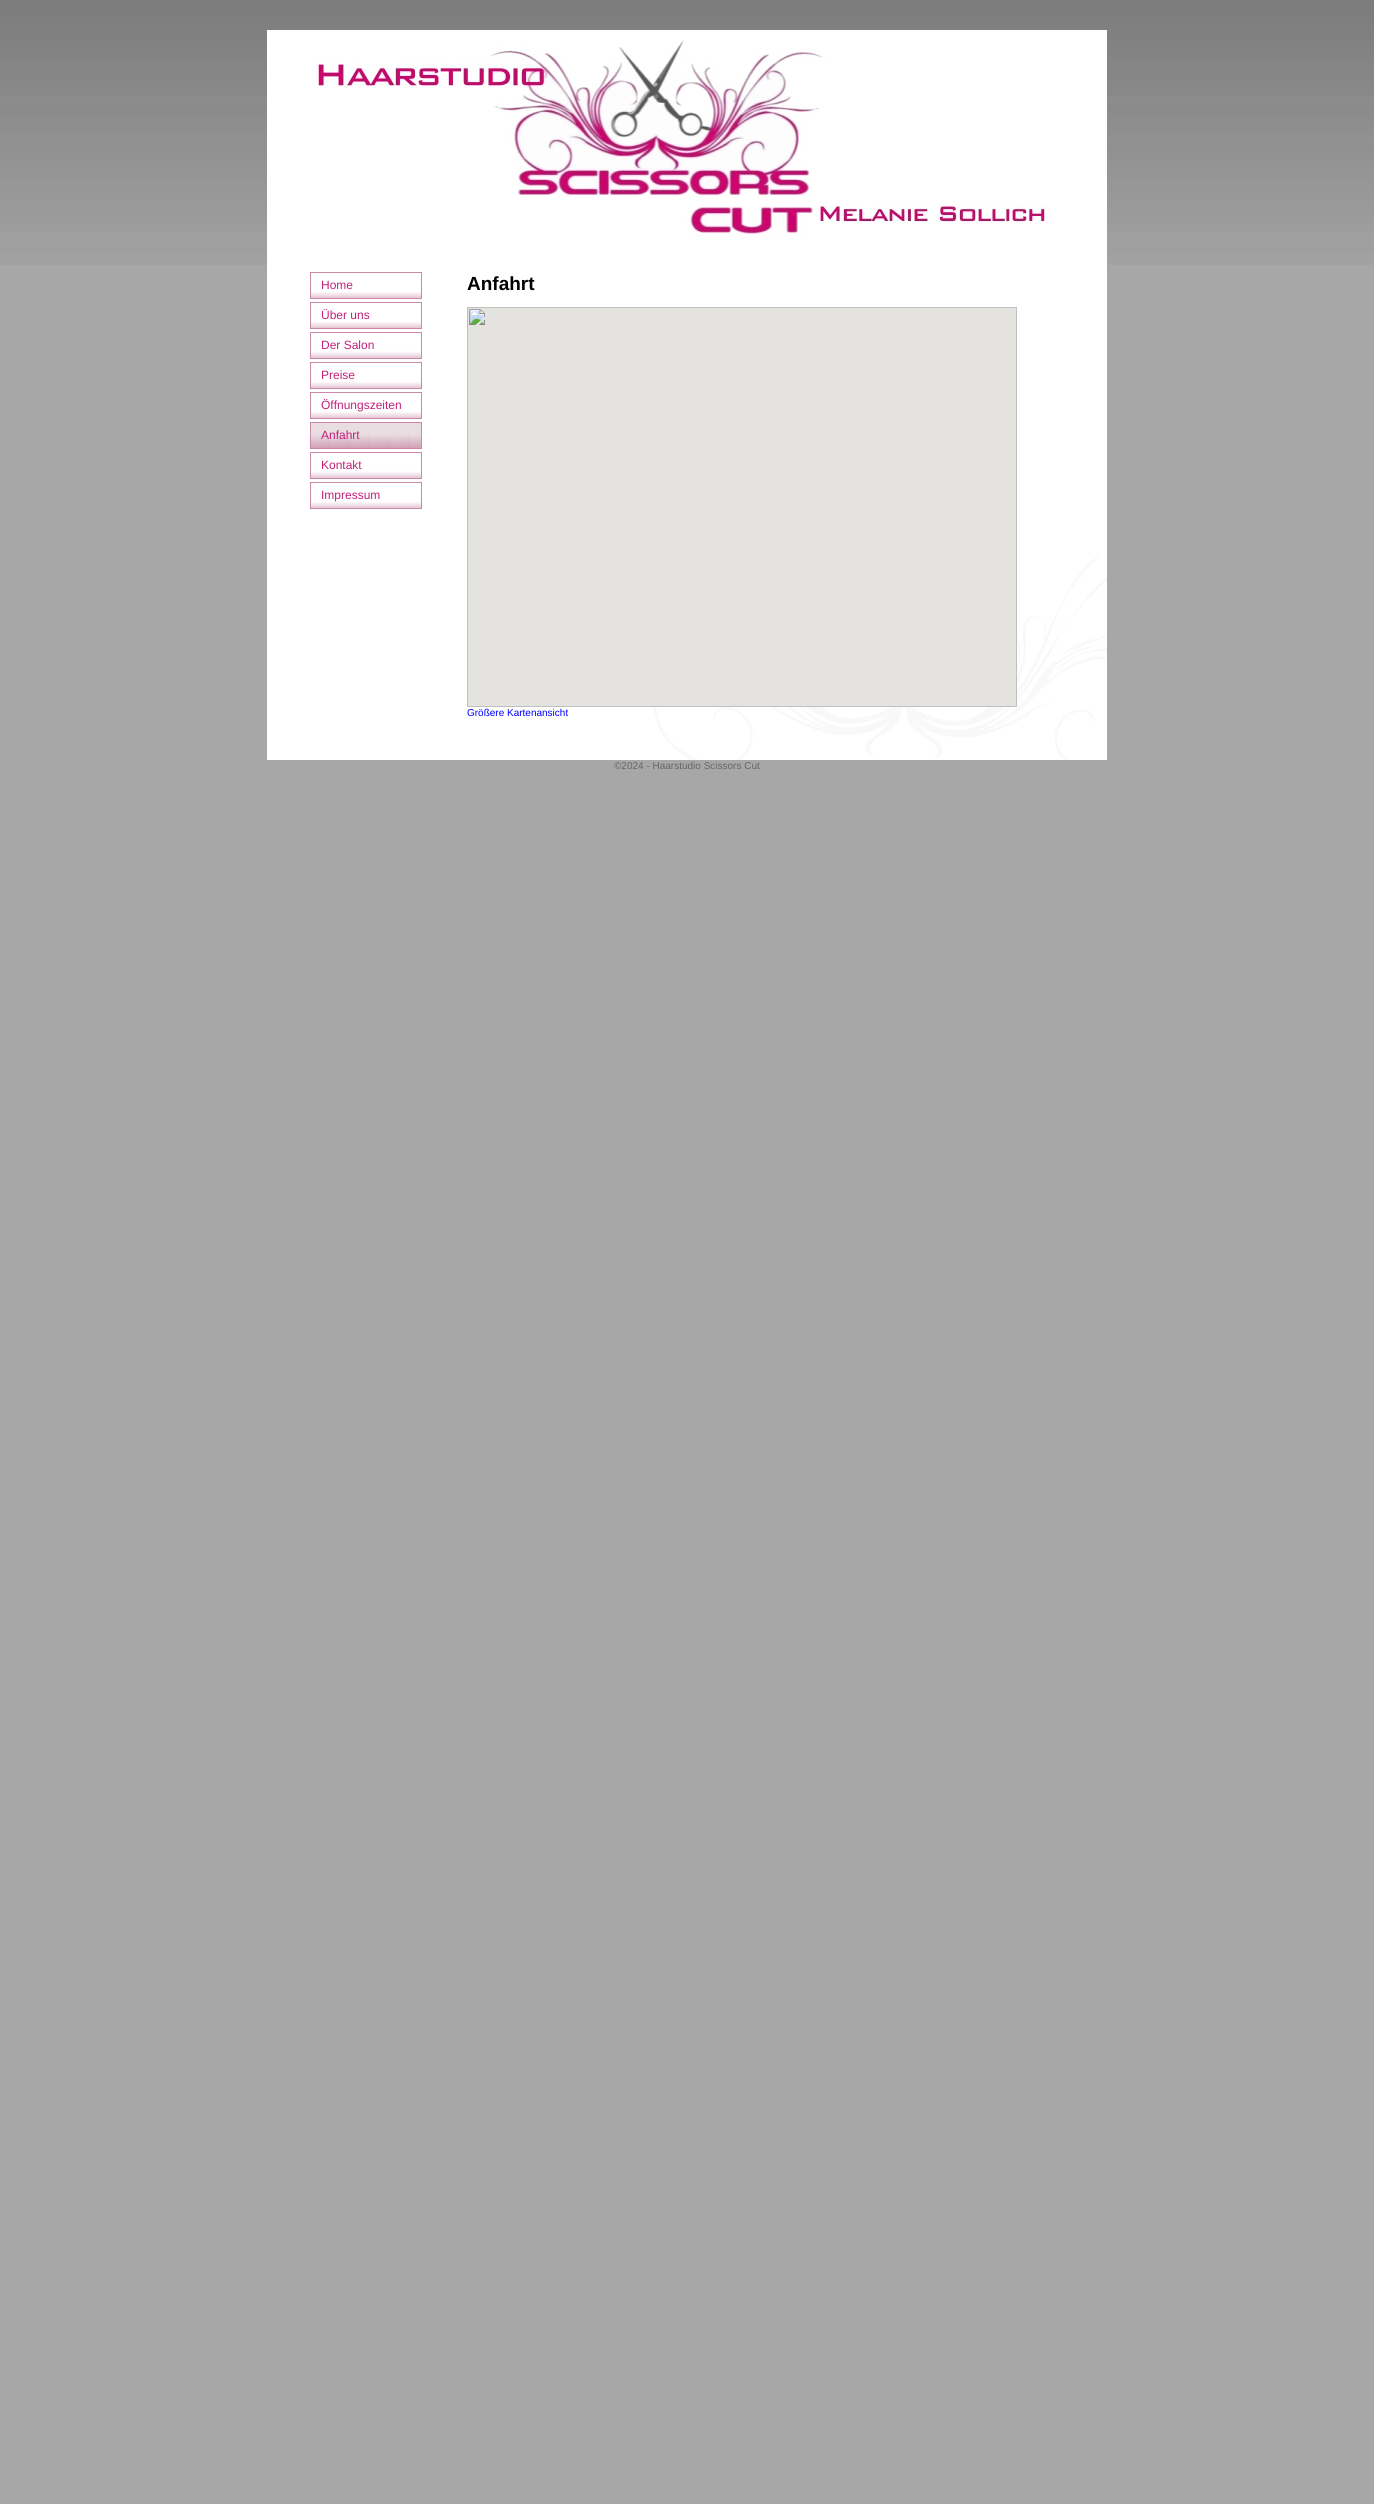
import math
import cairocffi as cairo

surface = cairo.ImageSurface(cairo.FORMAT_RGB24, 1374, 2504)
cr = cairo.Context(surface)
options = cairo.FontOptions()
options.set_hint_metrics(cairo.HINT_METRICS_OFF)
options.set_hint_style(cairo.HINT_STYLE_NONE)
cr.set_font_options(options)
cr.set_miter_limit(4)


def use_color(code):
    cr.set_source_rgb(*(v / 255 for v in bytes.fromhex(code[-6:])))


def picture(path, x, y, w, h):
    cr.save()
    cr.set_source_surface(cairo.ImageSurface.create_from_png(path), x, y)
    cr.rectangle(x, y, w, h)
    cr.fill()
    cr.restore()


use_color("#a7a7a7")
cr.paint()
picture("img1.png", 0, 0, 1374, 265)
use_color("#ffffff")
cr.rectangle(267, 30, 840, 730)
cr.fill()
picture("img2.png", 623, 539, 484, 221)
picture("img3.png", 315, 40, 736, 198)
picture("img4.png", 311, 273, 110, 25)
cr.rectangle(310.5, 272.5, 111, 26)
use_color("#ca89a6")
cr.set_line_width(1)
cr.stroke()
cr.select_font_face("Liberation Sans")
cr.set_font_size(12)
use_color("#c1217a")
cr.move_to(321, 289)
cr.show_text("Home")
picture("img4.png", 311, 303, 110, 25)
cr.rectangle(310.5, 302.5, 111, 26)
use_color("#ca89a6")
cr.stroke()
use_color("#c1217a")
cr.move_to(321, 319)
cr.show_text("Über uns")
picture("img4.png", 311, 333, 110, 25)
cr.rectangle(310.5, 332.5, 111, 26)
use_color("#ca89a6")
cr.stroke()
use_color("#c1217a")
cr.move_to(321, 349)
cr.show_text("Der Salon")
picture("img4.png", 311, 363, 110, 25)
cr.rectangle(310.5, 362.5, 111, 26)
use_color("#ca89a6")
cr.stroke()
use_color("#c1217a")
cr.move_to(321, 379)
cr.show_text("Preise")
picture("img4.png", 311, 393, 110, 25)
cr.rectangle(310.5, 392.5, 111, 26)
use_color("#ca89a6")
cr.stroke()
use_color("#c1217a")
cr.move_to(321, 409)
cr.show_text("Öffnungszeiten")
picture("img5.png", 311, 423, 110, 25)
cr.rectangle(310.5, 422.5, 111, 26)
use_color("#ca89a6")
cr.stroke()
use_color("#c1217a")
cr.move_to(321, 439)
cr.show_text("Anfahrt")
picture("img4.png", 311, 453, 110, 25)
cr.rectangle(310.5, 452.5, 111, 26)
use_color("#ca89a6")
cr.stroke()
use_color("#c1217a")
cr.move_to(321, 469)
cr.show_text("Kontakt")
picture("img4.png", 311, 483, 110, 25)
cr.rectangle(310.5, 482.5, 111, 26)
use_color("#ca89a6")
cr.stroke()
use_color("#c1217a")
cr.move_to(321, 499)
cr.show_text("Impressum")
cr.select_font_face("Liberation Sans", cairo.FONT_SLANT_NORMAL, cairo.FONT_WEIGHT_BOLD)
cr.set_font_size(19)
use_color("#000000")
cr.move_to(467, 290)
cr.show_text("Anfahrt")
picture("img6.png", 467, 307, 550, 400)
cr.select_font_face("Liberation Sans")
cr.set_font_size(10)
use_color("#0000ff")
cr.move_to(467, 716)
cr.show_text("Größere Kartenansicht")
use_color("#666666")
cr.move_to(614, 769)
cr.show_text("©2024 - Haarstudio Scissors Cut")
surface.write_to_png("result.png")
